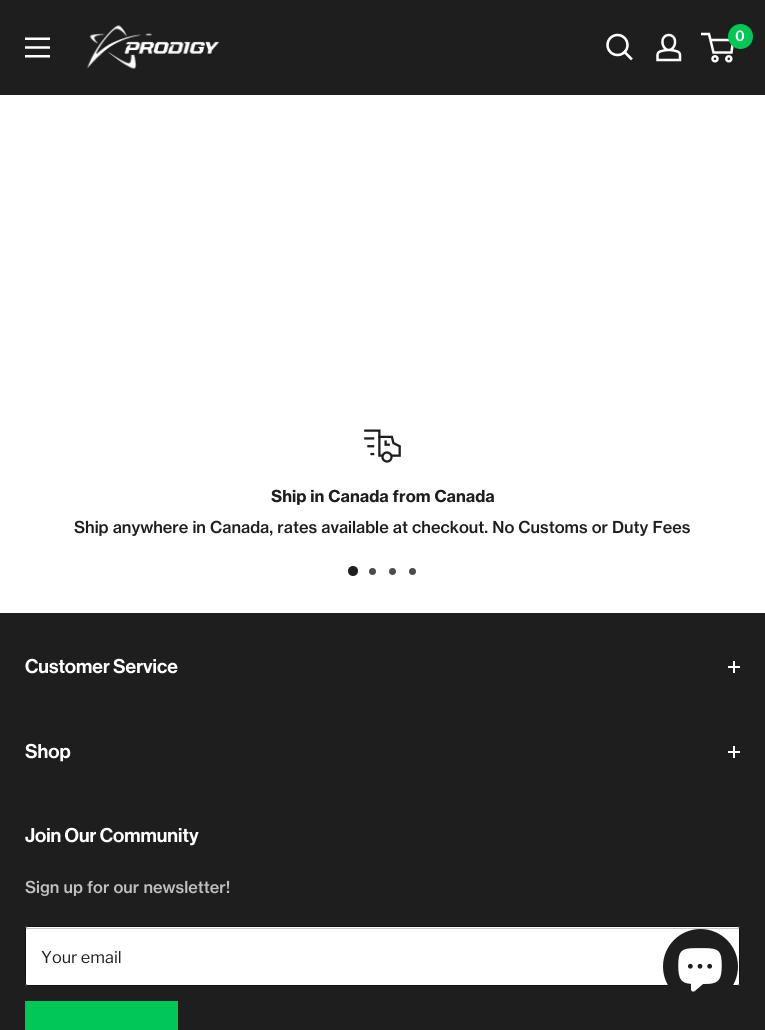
import math
import cairocffi as cairo

surface = cairo.ImageSurface(cairo.FORMAT_RGB24, 765, 1030)
cr = cairo.Context(surface)
options = cairo.FontOptions()
options.set_hint_metrics(cairo.HINT_METRICS_OFF)
options.set_hint_style(cairo.HINT_STYLE_NONE)
cr.set_font_options(options)
cr.set_miter_limit(4)


def use_color(code):
    cr.set_source_rgb(*(v / 255 for v in bytes.fromhex(code[-6:])))


def round_rect(x, y, w, h, r):
    cr.new_sub_path()
    for i, (u, v) in enumerate([(x + w - r, y + h - r), (x + r, y + h - r), (x + r, y + r), (x + w - r, y + r)]):
        cr.arc(u, v, r, i * math.pi / 2, (i + 1) * math.pi / 2)
    cr.close_path()


def picture(path, x, y, w, h):
    cr.save()
    cr.set_source_surface(cairo.ImageSurface.create_from_png(path), x, y)
    cr.rectangle(x, y, w, h)
    cr.fill()
    cr.restore()


use_color("#ffffff")
cr.paint()
use_color("#1e1e1e")
cr.rectangle(0, 0, 765, 95)
cr.fill()
picture("img1.png", 25, 37, 25, 21)
picture("img2.png", 86, 25, 134, 44)
cr.new_path()
cr.move_to(631, 58.5)
cr.line_to(624.5, 52)
use_color("#ffffff")
cr.set_line_width(2.6)
cr.set_line_cap(cairo.LINE_CAP_SQUARE)
cr.stroke()
cr.arc(617.5, 45, 10, 0, 2 * math.pi)
cr.set_line_cap(cairo.LINE_CAP_BUTT)
cr.stroke()
picture("img3.png", 656, 33, 26, 29)
cr.arc(715, 58.8, 2.5, 0, 2 * math.pi)
cr.set_line_width(2.5)
cr.stroke()
cr.arc(728.8, 58.8, 2.5, 0, 2 * math.pi)
cr.stroke()
cr.new_path()
cr.move_to(710.5, 40)
cr.line_to(733, 40)
cr.line_to(731.5, 52.5)
cr.line_to(713.5, 52.5)
cr.line_to(709, 34)
cr.line_to(701, 34)
cr.stroke()
use_color("#00c756")
cr.arc(740.5, 36.5, 12.5, 0, 2 * math.pi)
cr.fill()
cr.select_font_face("Libre Franklin SemiBold")
cr.set_font_size(14)
use_color("#ffffff")
cr.move_to(735, 41)
cr.show_text("0")
picture("img4.png", 364, 429, 37, 34)
cr.select_font_face("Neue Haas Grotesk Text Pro", cairo.FONT_SLANT_NORMAL, cairo.FONT_WEIGHT_BOLD)
cr.set_font_size(16.25)
use_color("#1e1e1e")
cr.move_to(271, 502)
cr.show_text("Ship in Canada from Canada")
cr.select_font_face("Neue Haas Grotesk Text Pro Medium")
cr.move_to(74, 533)
cr.show_text("Ship anywhere in Canada, rates available at checkout. No Customs or Duty Fees")
cr.new_path()
cr.arc(353, 571, 5, 0, 2 * math.pi)
cr.fill()
use_color("#4b4b4b")
cr.arc(372.5, 571.5, 3.5, 0, 2 * math.pi)
cr.fill()
cr.arc(392.5, 571.5, 3.5, 0, 2 * math.pi)
cr.fill()
cr.arc(412.5, 571.5, 3.5, 0, 2 * math.pi)
cr.fill()
use_color("#1e1e1e")
cr.rectangle(0, 613, 765, 417)
cr.fill()
cr.select_font_face("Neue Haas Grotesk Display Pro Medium")
cr.set_font_size(19.5)
use_color("#ffffff")
cr.move_to(25, 673)
cr.show_text("Customer Service")
cr.rectangle(733, 661, 2, 12)
cr.fill()
cr.rectangle(728, 666, 12, 2)
cr.fill()
cr.move_to(25, 758)
cr.show_text("Shop")
cr.rectangle(733, 746, 2, 12)
cr.fill()
cr.rectangle(728, 751, 12, 2)
cr.fill()
cr.move_to(25, 842)
cr.show_text("Join Our Community")
cr.select_font_face("Neue Haas Grotesk Text Pro Medium")
cr.set_font_size(16.25)
use_color("#c0c0c0")
cr.move_to(25, 893)
cr.show_text("Sign up for our newsletter!")
use_color("#ffffff")
round_rect(25, 926, 715, 60, 2.5)
cr.fill()
use_color("#c7c7c7")
cr.new_path()
cr.move_to(28, 929)
cr.line_to(738, 929)
cr.line_to(739, 930)
cr.curve_to(739, 929, 739, 928, 738, 928)
cr.line_to(27, 928)
cr.curve_to(26, 928, 26, 929, 26, 930)
cr.curve_to(26, 929, 27, 929, 28, 929)
cr.close_path()
cr.fill()
round_rect(25.5, 926.5, 714, 59, 2)
use_color("#111111")
cr.set_line_width(1)
cr.stroke()
cr.select_font_face("Libre Franklin")
use_color("#1e1e1e")
cr.move_to(41, 963)
cr.show_text("Your email")
use_color("#00c756")
cr.rectangle(25, 1001, 153, 29)
cr.fill()
use_color("#1e1e1e")
cr.arc(700.5, 966.5, 37.5, 0, 2 * math.pi)
cr.fill()
picture("img5.png", 678, 948, 44, 44)
surface.write_to_png("result.png")
